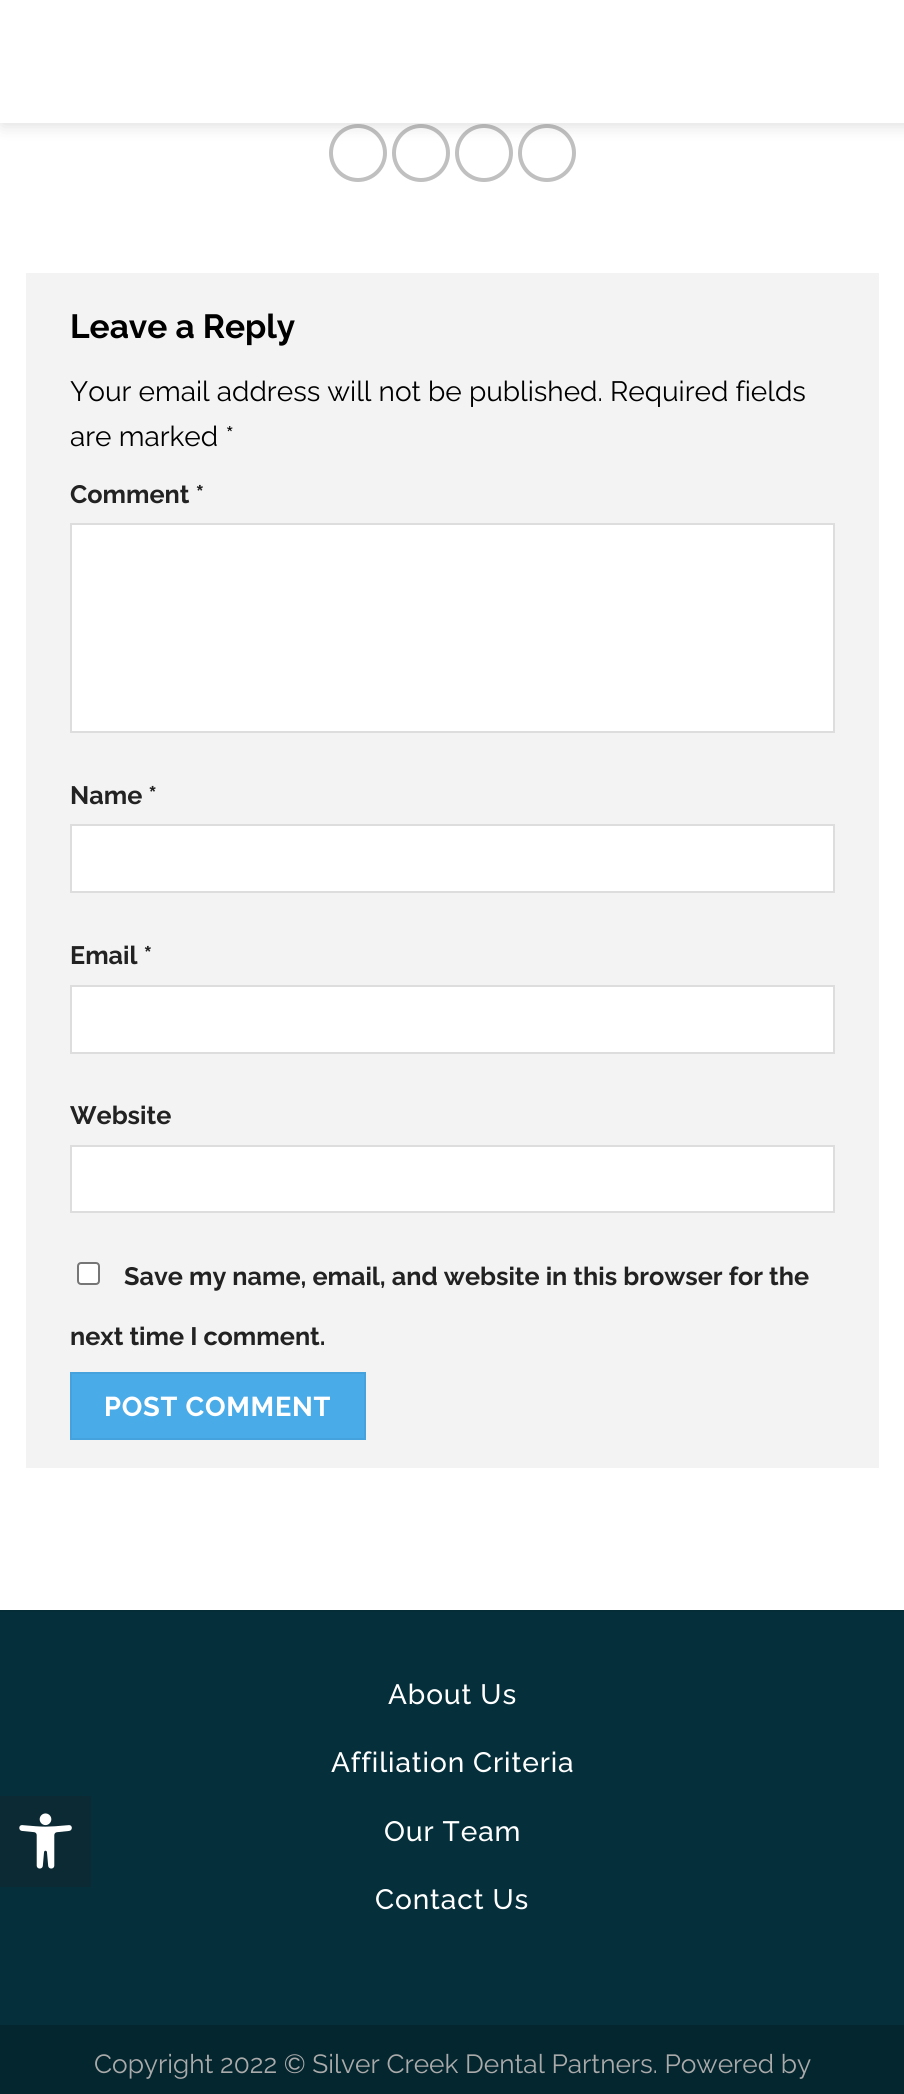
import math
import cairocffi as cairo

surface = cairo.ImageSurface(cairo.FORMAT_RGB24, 904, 2094)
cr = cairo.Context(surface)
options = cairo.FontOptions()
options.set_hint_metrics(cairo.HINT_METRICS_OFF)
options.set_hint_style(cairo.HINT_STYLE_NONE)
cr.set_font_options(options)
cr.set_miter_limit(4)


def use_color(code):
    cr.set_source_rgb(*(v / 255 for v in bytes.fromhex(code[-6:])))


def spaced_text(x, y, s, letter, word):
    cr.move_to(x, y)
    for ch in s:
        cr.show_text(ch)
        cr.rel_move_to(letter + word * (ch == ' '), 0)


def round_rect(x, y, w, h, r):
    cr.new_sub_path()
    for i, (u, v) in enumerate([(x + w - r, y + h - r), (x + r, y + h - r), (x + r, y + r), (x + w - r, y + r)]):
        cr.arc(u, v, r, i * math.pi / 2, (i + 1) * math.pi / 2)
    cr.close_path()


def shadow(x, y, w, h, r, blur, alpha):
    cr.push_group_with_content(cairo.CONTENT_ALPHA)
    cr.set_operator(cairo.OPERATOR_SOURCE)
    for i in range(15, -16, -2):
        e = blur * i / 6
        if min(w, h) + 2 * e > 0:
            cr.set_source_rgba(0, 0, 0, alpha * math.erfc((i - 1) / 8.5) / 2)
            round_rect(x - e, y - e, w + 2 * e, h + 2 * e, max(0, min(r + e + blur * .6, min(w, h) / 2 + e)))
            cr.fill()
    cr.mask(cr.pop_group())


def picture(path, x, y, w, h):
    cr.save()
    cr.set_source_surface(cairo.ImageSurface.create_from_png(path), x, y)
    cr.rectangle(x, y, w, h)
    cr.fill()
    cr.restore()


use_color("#ffffff")
cr.paint()
use_color("#052f3b")
cr.rectangle(0, 1612, 904, 413)
cr.fill()
use_color("#0c2a34")
cr.rectangle(0, 1796, 91, 91)
cr.fill()
picture("img1.png", 19, 1813, 53, 56)
cr.arc(358, 153, 27, 0, 2 * math.pi)
use_color("#c0c0c0")
cr.set_line_width(4)
cr.stroke()
cr.arc(421, 153, 27, 0, 2 * math.pi)
cr.stroke()
cr.arc(484, 153, 27, 0, 2 * math.pi)
cr.stroke()
cr.arc(547, 153, 27, 0, 2 * math.pi)
cr.stroke()
use_color("#000000")
shadow(2, 2, 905, 122, 0, 9, 0.15)
use_color("#ffffff")
cr.rectangle(0, 0, 904, 123)
cr.fill()
use_color("#f3f3f3")
cr.rectangle(26, 273, 853, 1195)
cr.fill()
cr.select_font_face("Raleway", cairo.FONT_SLANT_NORMAL, cairo.FONT_WEIGHT_BOLD)
cr.set_font_size(33.5)
use_color("#000000")
cr.move_to(70, 338)
cr.show_text("Leave a Reply")
cr.select_font_face("Raleway")
cr.set_font_size(28)
cr.move_to(70, 401)
cr.show_text("Your email address will not be published. Required fields")
cr.move_to(70, 446)
cr.show_text("are marked *")
cr.select_font_face("Raleway", cairo.FONT_SLANT_NORMAL, cairo.FONT_WEIGHT_BOLD)
cr.set_font_size(25.2)
use_color("#222222")
cr.move_to(70, 503)
cr.show_text("Comment *")
use_color("#ffffff")
cr.rectangle(71, 524, 763, 208)
cr.fill_preserve()
use_color("#dddddd")
cr.set_line_width(2)
cr.stroke()
use_color("#222222")
cr.move_to(70, 804)
cr.show_text("Name *")
use_color("#ffffff")
cr.rectangle(71, 825, 763, 67)
cr.fill_preserve()
use_color("#dddddd")
cr.stroke()
use_color("#222222")
cr.move_to(70, 964)
cr.show_text("Email *")
use_color("#ffffff")
cr.rectangle(71, 986, 763, 67)
cr.fill_preserve()
use_color("#dddddd")
cr.stroke()
use_color("#222222")
cr.move_to(70, 1124)
cr.show_text("Website")
use_color("#ffffff")
cr.rectangle(71, 1146, 763, 66)
cr.fill_preserve()
use_color("#dddddd")
cr.stroke()
use_color("#ffffff")
round_rect(78, 1263, 21, 21, 3)
cr.fill_preserve()
use_color("#767676")
cr.stroke()
use_color("#222222")
cr.move_to(124, 1285)
cr.show_text("Save my name, email, and website in this browser for the")
cr.move_to(70, 1345)
cr.show_text("next time I comment.")
use_color("#4aabe9")
cr.rectangle(71, 1373, 294, 66)
cr.fill_preserve()
use_color("#46a2dd")
cr.stroke()
cr.set_font_size(27.25)
use_color("#ffffff")
spaced_text(104, 1416, "POST COMMENT", 0.75, 0)
use_color("#052d38")
cr.rectangle(0, 1610, 904, 2)
cr.fill()
cr.select_font_face("Raleway Medium")
cr.set_font_size(28)
use_color("#ffffff")
spaced_text(388, 1704, "About Us", 0.9, 0)
spaced_text(331, 1772, "Affiliation Criteria", 0.9, 0)
spaced_text(384, 1841, "Our Team", 0.9, 0)
spaced_text(375, 1909, "Contact Us", 0.9, 0)
use_color("#04262f")
cr.rectangle(0, 2025, 904, 69)
cr.fill()
cr.select_font_face("Raleway")
cr.set_font_size(26.25)
use_color("#aaaaaa")
cr.move_to(94, 2073)
cr.show_text("Copyright 2022 © Silver Creek Dental Partners. Powered by")
surface.write_to_png("result.png")
